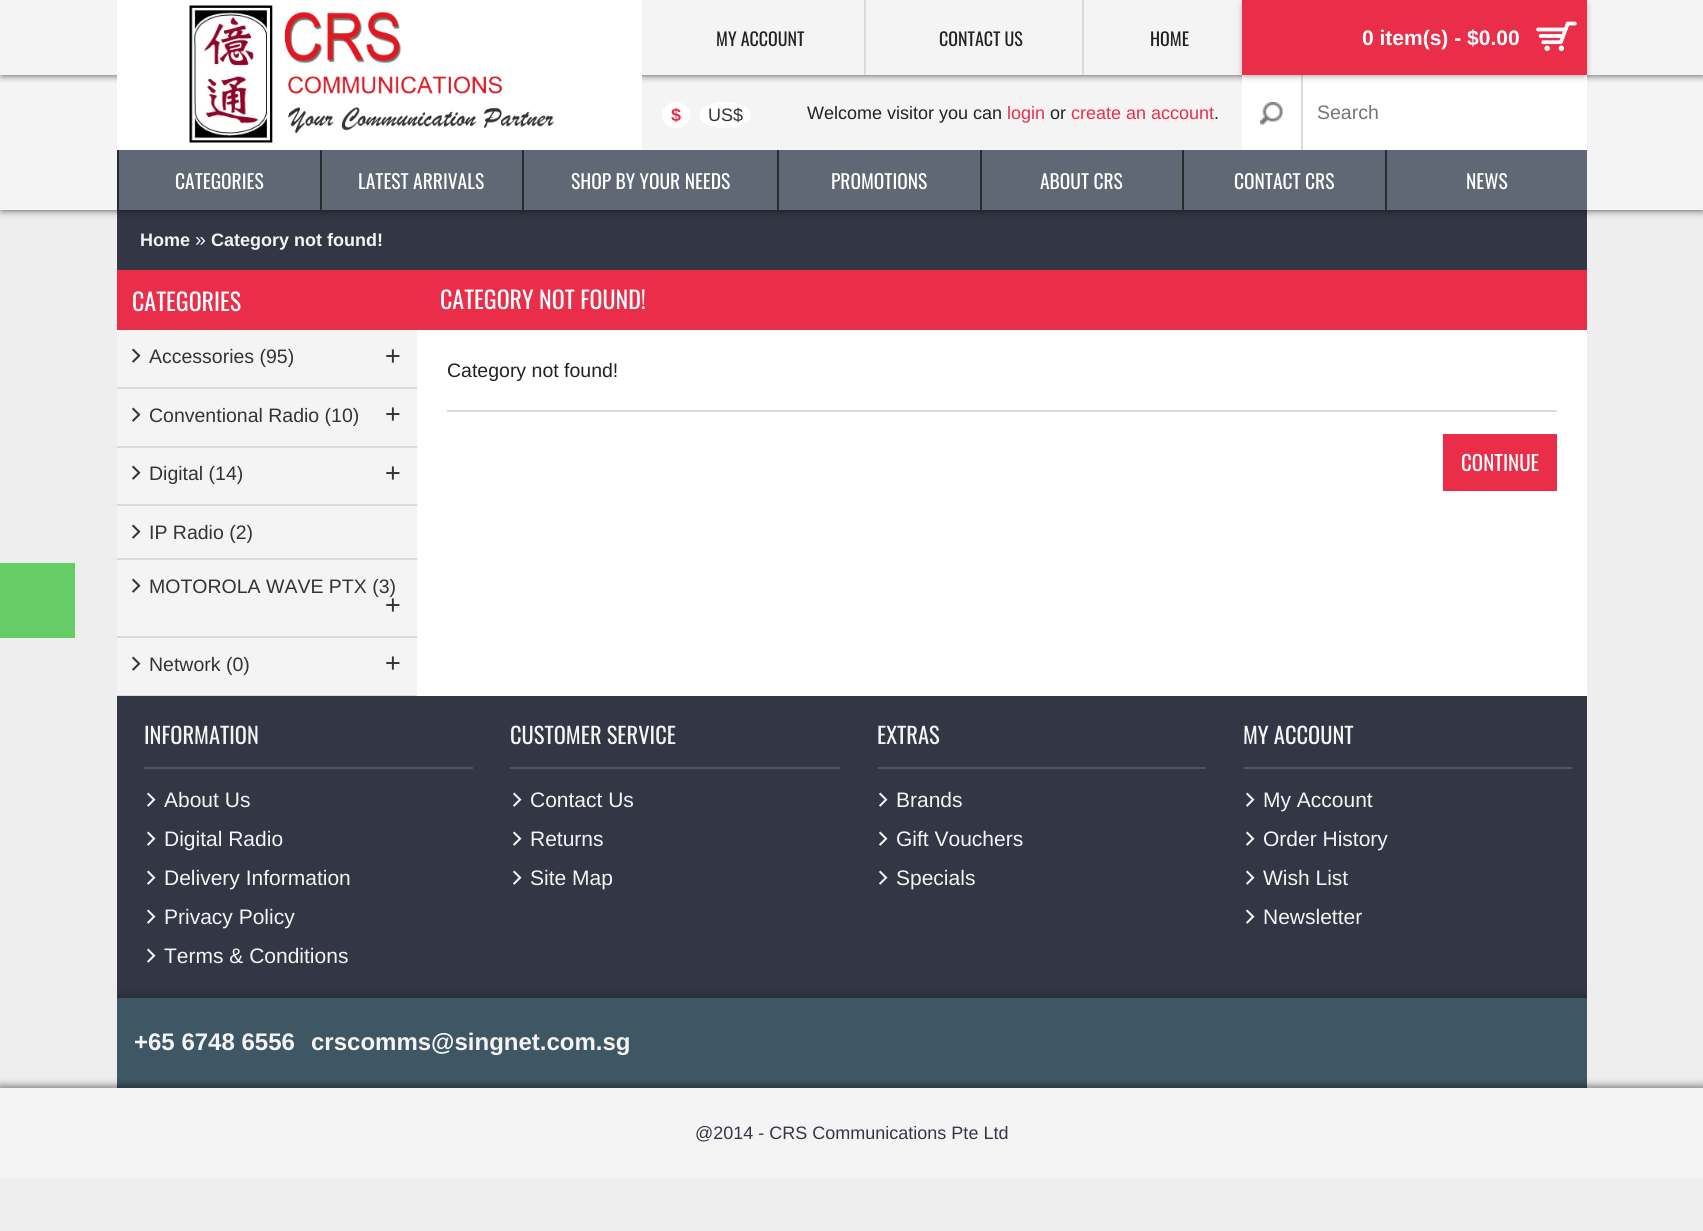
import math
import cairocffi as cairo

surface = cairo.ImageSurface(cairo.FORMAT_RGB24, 1703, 1231)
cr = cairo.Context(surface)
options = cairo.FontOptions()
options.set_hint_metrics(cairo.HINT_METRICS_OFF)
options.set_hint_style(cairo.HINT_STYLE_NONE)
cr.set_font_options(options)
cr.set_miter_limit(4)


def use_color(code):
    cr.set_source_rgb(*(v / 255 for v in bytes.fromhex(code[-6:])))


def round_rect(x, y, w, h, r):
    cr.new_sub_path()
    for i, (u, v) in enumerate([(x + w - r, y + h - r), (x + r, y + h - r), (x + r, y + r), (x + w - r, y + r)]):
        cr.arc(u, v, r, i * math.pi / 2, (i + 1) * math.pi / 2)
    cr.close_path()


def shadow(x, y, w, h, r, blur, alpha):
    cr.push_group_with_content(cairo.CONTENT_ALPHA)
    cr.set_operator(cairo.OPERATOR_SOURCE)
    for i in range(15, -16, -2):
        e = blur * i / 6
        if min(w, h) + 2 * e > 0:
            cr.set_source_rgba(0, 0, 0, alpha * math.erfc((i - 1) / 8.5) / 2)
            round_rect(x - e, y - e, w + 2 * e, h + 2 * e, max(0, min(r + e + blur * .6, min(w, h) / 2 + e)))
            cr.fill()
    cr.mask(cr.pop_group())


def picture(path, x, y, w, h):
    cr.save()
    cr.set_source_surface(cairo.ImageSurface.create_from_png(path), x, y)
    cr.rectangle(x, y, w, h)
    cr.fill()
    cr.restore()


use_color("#eeeeee")
cr.paint()
use_color("#333745")
cr.rectangle(117, 210, 1470, 60)
cr.fill()
use_color("#000000")
shadow(2, 3, 1701, 207, 0, 4, 0.7)
use_color("#f4f4f4")
cr.rectangle(0, 0, 1703, 210)
cr.fill()
cr.save()
cr.rectangle(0, 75, 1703, 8)
cr.clip()
use_color("#000000")
shadow(2, 3, 1701, 72, 0, 4, 0.7)
cr.restore()
use_color("#ffffff")
cr.rectangle(117, 0, 525, 150)
cr.fill()
picture("img1.png", 189, 5, 365, 138)
cr.select_font_face("Oswald")
cr.set_font_size(18)
use_color("#222222")
cr.move_to(716, 46)
cr.show_text("MY ACCOUNT")
use_color("#dbdbdb")
cr.rectangle(864, 0, 2, 75)
cr.fill()
use_color("#222222")
cr.move_to(939, 46)
cr.show_text("CONTACT US")
use_color("#dbdbdb")
cr.rectangle(1082, 0, 2, 75)
cr.fill()
use_color("#222222")
cr.move_to(1150, 46)
cr.show_text("HOME")
use_color("#ffffff")
cr.rectangle(1242, 75, 345, 75)
cr.fill()
use_color("#dbdbdb")
cr.rectangle(1301, 75, 2, 75)
cr.fill()
use_color("#000000")
shadow(1245, 5, 339, 69, 0, 4, 0.6)
use_color("#ea2e49")
cr.rectangle(1242, 0, 345, 75)
cr.fill()
cr.select_font_face("Liberation Sans", cairo.FONT_SLANT_NORMAL, cairo.FONT_WEIGHT_BOLD)
cr.set_font_size(21)
use_color("#ffffff")
cr.move_to(1362, 45)
cr.show_text("0 item(s) - $0.00")
picture("img2.png", 1536, 21, 41, 30)
cr.new_path()
cr.move_to(676, 102)
cr.curve_to(683.5, 102, 690, 108, 690, 115)
cr.curve_to(690, 122, 683.5, 128, 676, 128)
cr.curve_to(668.5, 128, 662, 122, 662, 115)
cr.curve_to(662, 108, 668.5, 102, 676, 102)
cr.close_path()
cr.fill()
cr.set_font_size(18)
use_color("#ea2e49")
cr.move_to(671, 121)
cr.show_text("$")
use_color("#ffffff")
cr.new_path()
cr.move_to(725, 102)
cr.curve_to(739.5, 102, 751, 108, 751, 115)
cr.curve_to(751, 122, 739.5, 128, 725, 128)
cr.curve_to(710.5, 128, 699, 122, 699, 115)
cr.curve_to(699, 108, 710.5, 102, 725, 102)
cr.close_path()
cr.fill()
cr.select_font_face("Liberation Sans")
use_color("#333333")
cr.move_to(708, 121)
cr.show_text("US$")
use_color("#222222")
cr.move_to(807, 119)
cr.show_text("Welcome visitor you can")
use_color("#ea2e49")
cr.move_to(1007, 119)
cr.show_text("login")
use_color("#222222")
cr.move_to(1050, 119)
cr.show_text("or")
use_color("#ea2e49")
cr.move_to(1071, 119)
cr.show_text("create an account")
use_color("#222222")
cr.move_to(1214, 119)
cr.show_text(".")
picture("img3.png", 1260, 102, 23, 23)
cr.set_font_size(19.5)
use_color("#757575")
cr.move_to(1317, 119)
cr.show_text("Search")
use_color("#5f6874")
cr.rectangle(119, 150, 1468, 60)
cr.fill()
use_color("#2a2b2e")
cr.rectangle(117, 150, 2, 60)
cr.fill()
cr.select_font_face("Oswald")
use_color("#ffffff")
cr.move_to(175, 189)
cr.show_text("CATEGORIES")
use_color("#2a2b2e")
cr.rectangle(320, 150, 2, 60)
cr.fill()
use_color("#ffffff")
cr.move_to(358, 189)
cr.show_text("LATEST ARRIVALS")
use_color("#2a2b2e")
cr.rectangle(522, 150, 2, 60)
cr.fill()
use_color("#ffffff")
cr.move_to(571, 189)
cr.show_text("SHOP BY YOUR NEEDS")
use_color("#2a2b2e")
cr.rectangle(777, 150, 2, 60)
cr.fill()
use_color("#ffffff")
cr.move_to(831, 189)
cr.show_text("PROMOTIONS")
use_color("#2a2b2e")
cr.rectangle(980, 150, 2, 60)
cr.fill()
use_color("#ffffff")
cr.move_to(1040, 189)
cr.show_text("ABOUT CRS")
use_color("#2a2b2e")
cr.rectangle(1182, 150, 2, 60)
cr.fill()
use_color("#ffffff")
cr.move_to(1234, 189)
cr.show_text("CONTACT CRS")
use_color("#2a2b2e")
cr.rectangle(1385, 150, 2, 60)
cr.fill()
use_color("#ffffff")
cr.move_to(1466, 189)
cr.show_text("NEWS")
cr.select_font_face("Liberation Sans", cairo.FONT_SLANT_NORMAL, cairo.FONT_WEIGHT_BOLD)
cr.set_font_size(18)
use_color("#f4f4f4")
cr.move_to(140, 246)
cr.show_text("Home")
cr.select_font_face("Liberation Sans")
cr.set_font_size(19.5)
cr.move_to(195, 246)
cr.show_text("»")
cr.select_font_face("Liberation Sans", cairo.FONT_SLANT_NORMAL, cairo.FONT_WEIGHT_BOLD)
cr.set_font_size(18)
cr.move_to(211, 246)
cr.show_text("Category not found!")
use_color("#66cc66")
cr.rectangle(0, 563, 75, 75)
cr.fill()
use_color("#ffffff")
cr.rectangle(417, 330, 1170, 366)
cr.fill()
use_color("#ea2e49")
cr.rectangle(117, 270, 1470, 60)
cr.fill()
cr.select_font_face("Oswald")
cr.set_font_size(24)
use_color("#ffffff")
cr.move_to(132, 311)
cr.show_text("CATEGORIES")
use_color("#f4f4f4")
cr.rectangle(117, 330, 300, 365)
cr.fill()
use_color("#dbdbdb")
cr.rectangle(117, 387, 300, 2)
cr.fill()
cr.select_font_face("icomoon")
cr.set_font_size(16)
use_color("#333333")
cr.move_to(128, 363)
cr.show_text("1")
cr.select_font_face("Liberation Sans")
cr.set_font_size(19.5)
cr.move_to(149, 363)
cr.show_text("Accessories (95)")
cr.set_font_size(27)
cr.move_to(385, 365)
cr.show_text("+")
use_color("#dbdbdb")
cr.rectangle(117, 446, 300, 2)
cr.fill()
cr.select_font_face("icomoon")
cr.set_font_size(16)
use_color("#333333")
cr.move_to(128, 422)
cr.show_text("1")
cr.select_font_face("Liberation Sans")
cr.set_font_size(19.5)
cr.move_to(149, 422)
cr.show_text("Conventional Radio (10)")
cr.set_font_size(27)
cr.move_to(385, 423)
cr.show_text("+")
use_color("#dbdbdb")
cr.rectangle(117, 504, 300, 2)
cr.fill()
cr.select_font_face("icomoon")
cr.set_font_size(16)
use_color("#333333")
cr.move_to(128, 480)
cr.show_text("1")
cr.select_font_face("Liberation Sans")
cr.set_font_size(19.5)
cr.move_to(149, 480)
cr.show_text("Digital (14)")
cr.set_font_size(27)
cr.move_to(385, 482)
cr.show_text("+")
use_color("#dbdbdb")
cr.rectangle(117, 558, 300, 2)
cr.fill()
cr.select_font_face("icomoon")
cr.set_font_size(16)
use_color("#333333")
cr.move_to(128, 539)
cr.show_text("1")
cr.select_font_face("Liberation Sans")
cr.set_font_size(19.5)
cr.move_to(149, 539)
cr.show_text("IP Radio (2)")
use_color("#dbdbdb")
cr.rectangle(117, 636, 300, 2)
cr.fill()
cr.select_font_face("icomoon")
cr.set_font_size(16)
use_color("#333333")
cr.move_to(128, 593)
cr.show_text("1")
cr.select_font_face("Liberation Sans")
cr.set_font_size(19.5)
cr.move_to(149, 593)
cr.show_text("MOTOROLA WAVE PTX (3)")
cr.set_font_size(27)
cr.move_to(385, 614)
cr.show_text("+")
use_color("#dbdbdb")
cr.rectangle(117, 695, 300, 1)
cr.fill()
cr.select_font_face("icomoon")
cr.set_font_size(16)
use_color("#333333")
cr.move_to(128, 671)
cr.show_text("1")
cr.select_font_face("Liberation Sans")
cr.set_font_size(19.5)
cr.move_to(149, 671)
cr.show_text("Network (0)")
cr.set_font_size(27)
cr.move_to(385, 672)
cr.show_text("+")
cr.select_font_face("Oswald")
cr.set_font_size(24)
use_color("#ffffff")
cr.move_to(440, 309)
cr.show_text("CATEGORY NOT FOUND!")
cr.select_font_face("Liberation Sans")
cr.set_font_size(19.5)
use_color("#222222")
cr.move_to(447, 377)
cr.show_text("Category not found!")
use_color("#dbdbdb")
cr.rectangle(447, 410, 1110, 2)
cr.fill()
use_color("#ea2e49")
cr.rectangle(1443, 434, 114, 57)
cr.fill()
cr.select_font_face("Oswald")
cr.set_font_size(21)
use_color("#ffffff")
cr.move_to(1461, 471)
cr.show_text("CONTINUE")
use_color("#333745")
cr.rectangle(117, 696, 1470, 302)
cr.fill()
use_color("#555555")
cr.rectangle(144, 767, 329, 2)
cr.fill()
cr.set_font_size(22.5)
use_color("#f4f4f4")
cr.move_to(144, 744)
cr.show_text("INFORMATION")
cr.select_font_face("icomoon")
cr.set_font_size(16)
cr.move_to(143, 807)
cr.show_text("1")
cr.select_font_face("Liberation Sans")
cr.set_font_size(21)
cr.move_to(164, 807)
cr.show_text("About Us")
cr.select_font_face("icomoon")
cr.set_font_size(16)
cr.move_to(143, 846)
cr.show_text("1")
cr.select_font_face("Liberation Sans")
cr.set_font_size(21)
cr.move_to(164, 846)
cr.show_text("Digital Radio")
cr.select_font_face("icomoon")
cr.set_font_size(16)
cr.move_to(143, 885)
cr.show_text("1")
cr.select_font_face("Liberation Sans")
cr.set_font_size(21)
cr.move_to(164, 885)
cr.show_text("Delivery Information")
cr.select_font_face("icomoon")
cr.set_font_size(16)
cr.move_to(143, 924)
cr.show_text("1")
cr.select_font_face("Liberation Sans")
cr.set_font_size(21)
cr.move_to(164, 924)
cr.show_text("Privacy Policy")
cr.select_font_face("icomoon")
cr.set_font_size(16)
cr.move_to(143, 963)
cr.show_text("1")
cr.select_font_face("Liberation Sans")
cr.set_font_size(21)
cr.move_to(164, 963)
cr.show_text("Terms & Conditions")
use_color("#555555")
cr.rectangle(510, 767, 330, 2)
cr.fill()
cr.select_font_face("Oswald")
cr.set_font_size(22.5)
use_color("#f4f4f4")
cr.move_to(510, 744)
cr.show_text("CUSTOMER SERVICE")
cr.select_font_face("icomoon")
cr.set_font_size(16)
cr.move_to(509, 807)
cr.show_text("1")
cr.select_font_face("Liberation Sans")
cr.set_font_size(21)
cr.move_to(530, 807)
cr.show_text("Contact Us")
cr.select_font_face("icomoon")
cr.set_font_size(16)
cr.move_to(509, 846)
cr.show_text("1")
cr.select_font_face("Liberation Sans")
cr.set_font_size(21)
cr.move_to(530, 846)
cr.show_text("Returns")
cr.select_font_face("icomoon")
cr.set_font_size(16)
cr.move_to(509, 885)
cr.show_text("1")
cr.select_font_face("Liberation Sans")
cr.set_font_size(21)
cr.move_to(530, 885)
cr.show_text("Site Map")
use_color("#555555")
cr.rectangle(878, 767, 328, 2)
cr.fill()
cr.select_font_face("Oswald")
cr.set_font_size(22.5)
use_color("#f4f4f4")
cr.move_to(877, 744)
cr.show_text("EXTRAS")
cr.select_font_face("icomoon")
cr.set_font_size(16)
cr.move_to(875, 807)
cr.show_text("1")
cr.select_font_face("Liberation Sans")
cr.set_font_size(21)
cr.move_to(896, 807)
cr.show_text("Brands")
cr.select_font_face("icomoon")
cr.set_font_size(16)
cr.move_to(875, 846)
cr.show_text("1")
cr.select_font_face("Liberation Sans")
cr.set_font_size(21)
cr.move_to(896, 846)
cr.show_text("Gift Vouchers")
cr.select_font_face("icomoon")
cr.set_font_size(16)
cr.move_to(875, 885)
cr.show_text("1")
cr.select_font_face("Liberation Sans")
cr.set_font_size(21)
cr.move_to(896, 885)
cr.show_text("Specials")
use_color("#555555")
cr.rectangle(1244, 767, 328, 2)
cr.fill()
cr.select_font_face("Oswald")
cr.set_font_size(22.5)
use_color("#f4f4f4")
cr.move_to(1243, 744)
cr.show_text("MY ACCOUNT")
cr.select_font_face("icomoon")
cr.set_font_size(16)
cr.move_to(1242, 807)
cr.show_text("1")
cr.select_font_face("Liberation Sans")
cr.set_font_size(21)
cr.move_to(1263, 807)
cr.show_text("My Account")
cr.select_font_face("icomoon")
cr.set_font_size(16)
cr.move_to(1242, 846)
cr.show_text("1")
cr.select_font_face("Liberation Sans")
cr.set_font_size(21)
cr.move_to(1263, 846)
cr.show_text("Order History")
cr.select_font_face("icomoon")
cr.set_font_size(16)
cr.move_to(1242, 885)
cr.show_text("1")
cr.select_font_face("Liberation Sans")
cr.set_font_size(21)
cr.move_to(1263, 885)
cr.show_text("Wish List")
cr.select_font_face("icomoon")
cr.set_font_size(16)
cr.move_to(1242, 924)
cr.show_text("1")
cr.select_font_face("Liberation Sans")
cr.set_font_size(21)
cr.move_to(1263, 924)
cr.show_text("Newsletter")
cr.save()
cr.rectangle(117, 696, 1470, 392)
cr.clip()
use_color("#000000")
shadow(117, 998, 1470, 90, 0, 5, 0.4)
cr.restore()
use_color("#3f5765")
cr.rectangle(117, 998, 1470, 90)
cr.fill()
cr.select_font_face("Liberation Sans", cairo.FONT_SLANT_NORMAL, cairo.FONT_WEIGHT_BOLD)
cr.set_font_size(24)
use_color("#f4f4f4")
cr.move_to(134, 1050)
cr.show_text("+65 6748 6556")
cr.move_to(311, 1050)
cr.show_text("crscomms@singnet.com.sg")
cr.save()
cr.rectangle(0, 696, 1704, 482)
cr.clip()
use_color("#000000")
shadow(0, 1086, 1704, 90, 0, 4, 0.5)
cr.restore()
cr.rectangle(0, 1088, 1703, 90)
cr.fill()
cr.select_font_face("Liberation Sans")
cr.set_font_size(18)
use_color("#333745")
cr.move_to(695, 1139)
cr.show_text("@2014 - CRS Communications Pte Ltd")
surface.write_to_png("result.png")
